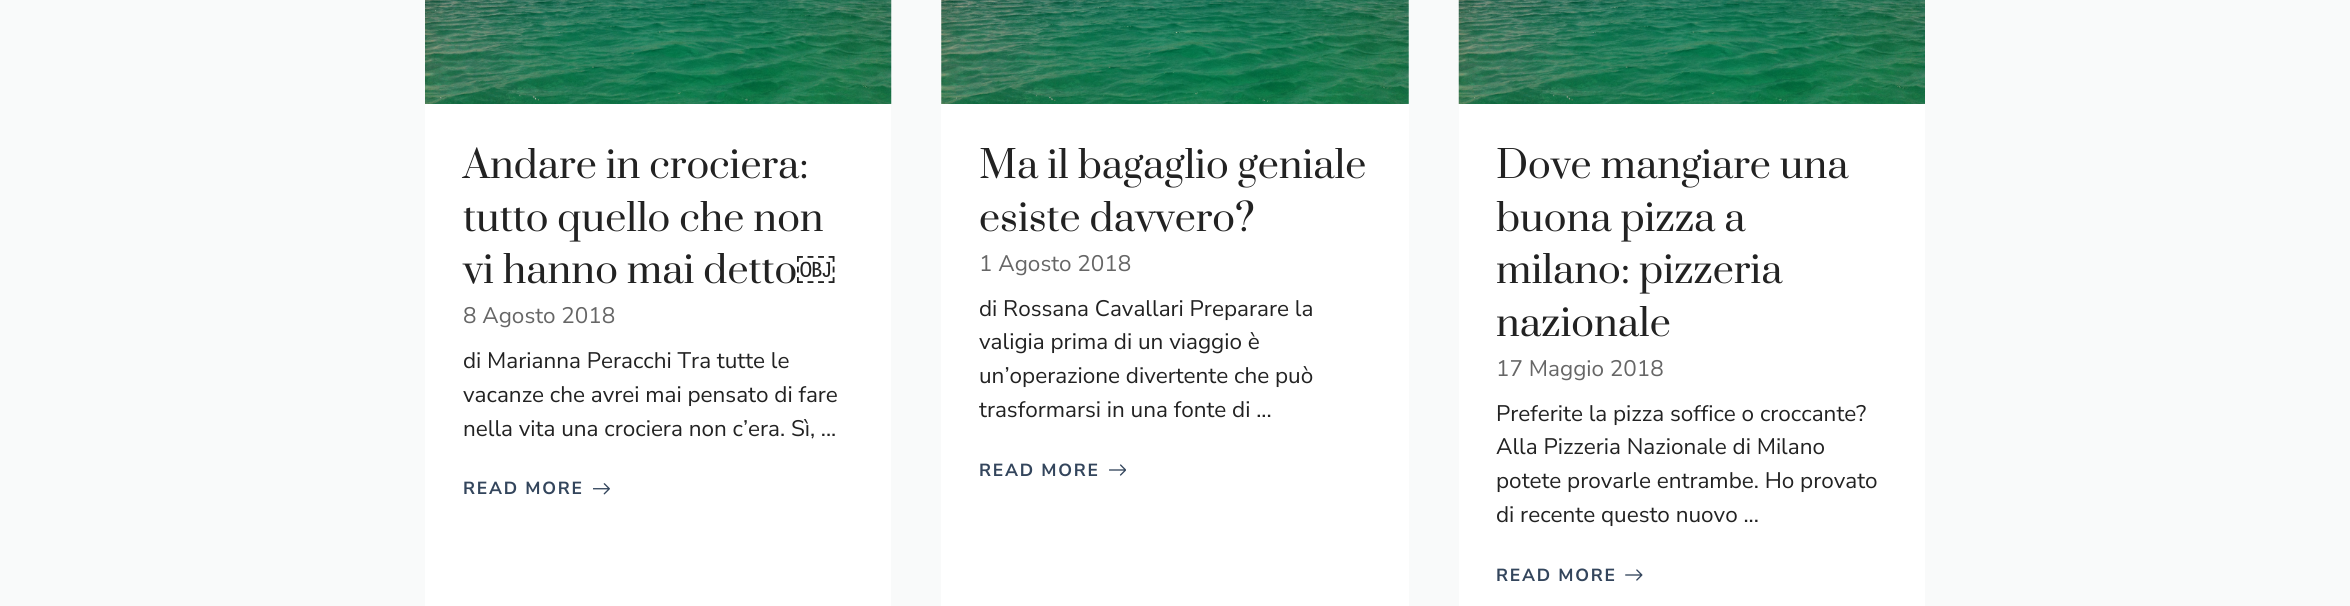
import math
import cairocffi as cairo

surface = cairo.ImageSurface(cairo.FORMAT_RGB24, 2350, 606)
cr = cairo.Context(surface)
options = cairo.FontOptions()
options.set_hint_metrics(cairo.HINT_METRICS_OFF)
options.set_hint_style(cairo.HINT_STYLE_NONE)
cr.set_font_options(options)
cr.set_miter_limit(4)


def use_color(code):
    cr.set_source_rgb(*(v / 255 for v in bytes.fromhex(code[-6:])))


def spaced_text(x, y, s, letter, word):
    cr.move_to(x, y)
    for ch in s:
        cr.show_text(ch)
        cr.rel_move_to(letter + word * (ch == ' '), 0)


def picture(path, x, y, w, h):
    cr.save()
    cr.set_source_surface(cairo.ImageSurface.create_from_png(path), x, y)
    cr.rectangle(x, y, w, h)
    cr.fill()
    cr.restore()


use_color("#f9fafa")
cr.paint()
use_color("#ffffff")
cr.rectangle(425, 104, 466, 502)
cr.fill()
picture("img1.png", 425, 0, 467, 104)
cr.select_font_face("Prata")
cr.set_font_size(37.5)
use_color("#222222")
cr.move_to(463, 178)
cr.show_text("Andare in crociera:")
cr.move_to(463, 231)
cr.show_text("tutto quello che non")
cr.move_to(463, 283)
cr.show_text("vi hanno mai detto")
cr.select_font_face("Liberation Serif")
cr.move_to(797, 283)
cr.show_text("￼")
cr.select_font_face("Nunito Sans")
cr.set_font_size(22.5)
use_color("#666666")
cr.move_to(463, 323)
cr.show_text("8 Agosto 2018")
use_color("#222222")
cr.move_to(463, 368)
cr.show_text("di Marianna Peracchi Tra tutte le")
cr.move_to(463, 402)
cr.show_text("vacanze che avrei mai pensato di fare")
cr.move_to(463, 436)
cr.show_text("nella vita una crociera non c’era. Sì, ...")
cr.select_font_face("Nunito Sans", cairo.FONT_SLANT_NORMAL, cairo.FONT_WEIGHT_BOLD)
cr.set_font_size(17.5)
use_color("#33455c")
spaced_text(463, 494, "READ MORE", 1.75, 0)
picture("img2.png", 593, 483, 17, 12)
use_color("#ffffff")
cr.rectangle(941, 0, 468, 606)
cr.fill()
picture("img3.png", 941, 0, 468, 104)
cr.select_font_face("Prata")
cr.set_font_size(37.5)
use_color("#222222")
cr.move_to(979, 178)
cr.show_text("Ma il bagaglio geniale")
cr.move_to(979, 231)
cr.show_text("esiste davvero?")
cr.select_font_face("Nunito Sans")
cr.set_font_size(22.5)
use_color("#666666")
cr.move_to(979, 271)
cr.show_text("1 Agosto 2018")
use_color("#222222")
cr.move_to(979, 316)
cr.show_text("di Rossana Cavallari Preparare la")
cr.move_to(979, 349)
cr.show_text("valigia prima di un viaggio è")
cr.move_to(979, 383)
cr.show_text("un’operazione divertente che può")
cr.move_to(979, 417)
cr.show_text("trasformarsi in una fonte di ...")
cr.select_font_face("Nunito Sans", cairo.FONT_SLANT_NORMAL, cairo.FONT_WEIGHT_BOLD)
cr.set_font_size(17.5)
use_color("#33455c")
spaced_text(979, 476, "READ MORE", 1.75, 0)
picture("img4.png", 1109, 464, 17, 12)
use_color("#ffffff")
cr.rectangle(1459, 104, 466, 502)
cr.fill()
picture("img5.png", 1458, 0, 467, 104)
cr.select_font_face("Prata")
cr.set_font_size(37.5)
use_color("#222222")
cr.move_to(1496, 178)
cr.show_text("Dove mangiare una")
cr.move_to(1496, 231)
cr.show_text("buona pizza a")
cr.move_to(1496, 283)
cr.show_text("milano: pizzeria")
cr.move_to(1496, 336)
cr.show_text("nazionale")
cr.select_font_face("Nunito Sans")
cr.set_font_size(22.5)
use_color("#666666")
cr.move_to(1496, 376)
cr.show_text("17 Maggio 2018")
use_color("#222222")
cr.move_to(1496, 421)
cr.show_text("Preferite la pizza soffice o croccante?")
cr.move_to(1496, 454)
cr.show_text("Alla Pizzeria Nazionale di Milano")
cr.move_to(1496, 488)
cr.show_text("potete provarle entrambe. Ho provato")
cr.move_to(1496, 522)
cr.show_text("di recente questo nuovo ...")
cr.select_font_face("Nunito Sans", cairo.FONT_SLANT_NORMAL, cairo.FONT_WEIGHT_BOLD)
cr.set_font_size(17.5)
use_color("#33455c")
spaced_text(1496, 581, "READ MORE", 1.75, 0)
picture("img6.png", 1625, 569, 18, 12)
surface.write_to_png("result.png")
